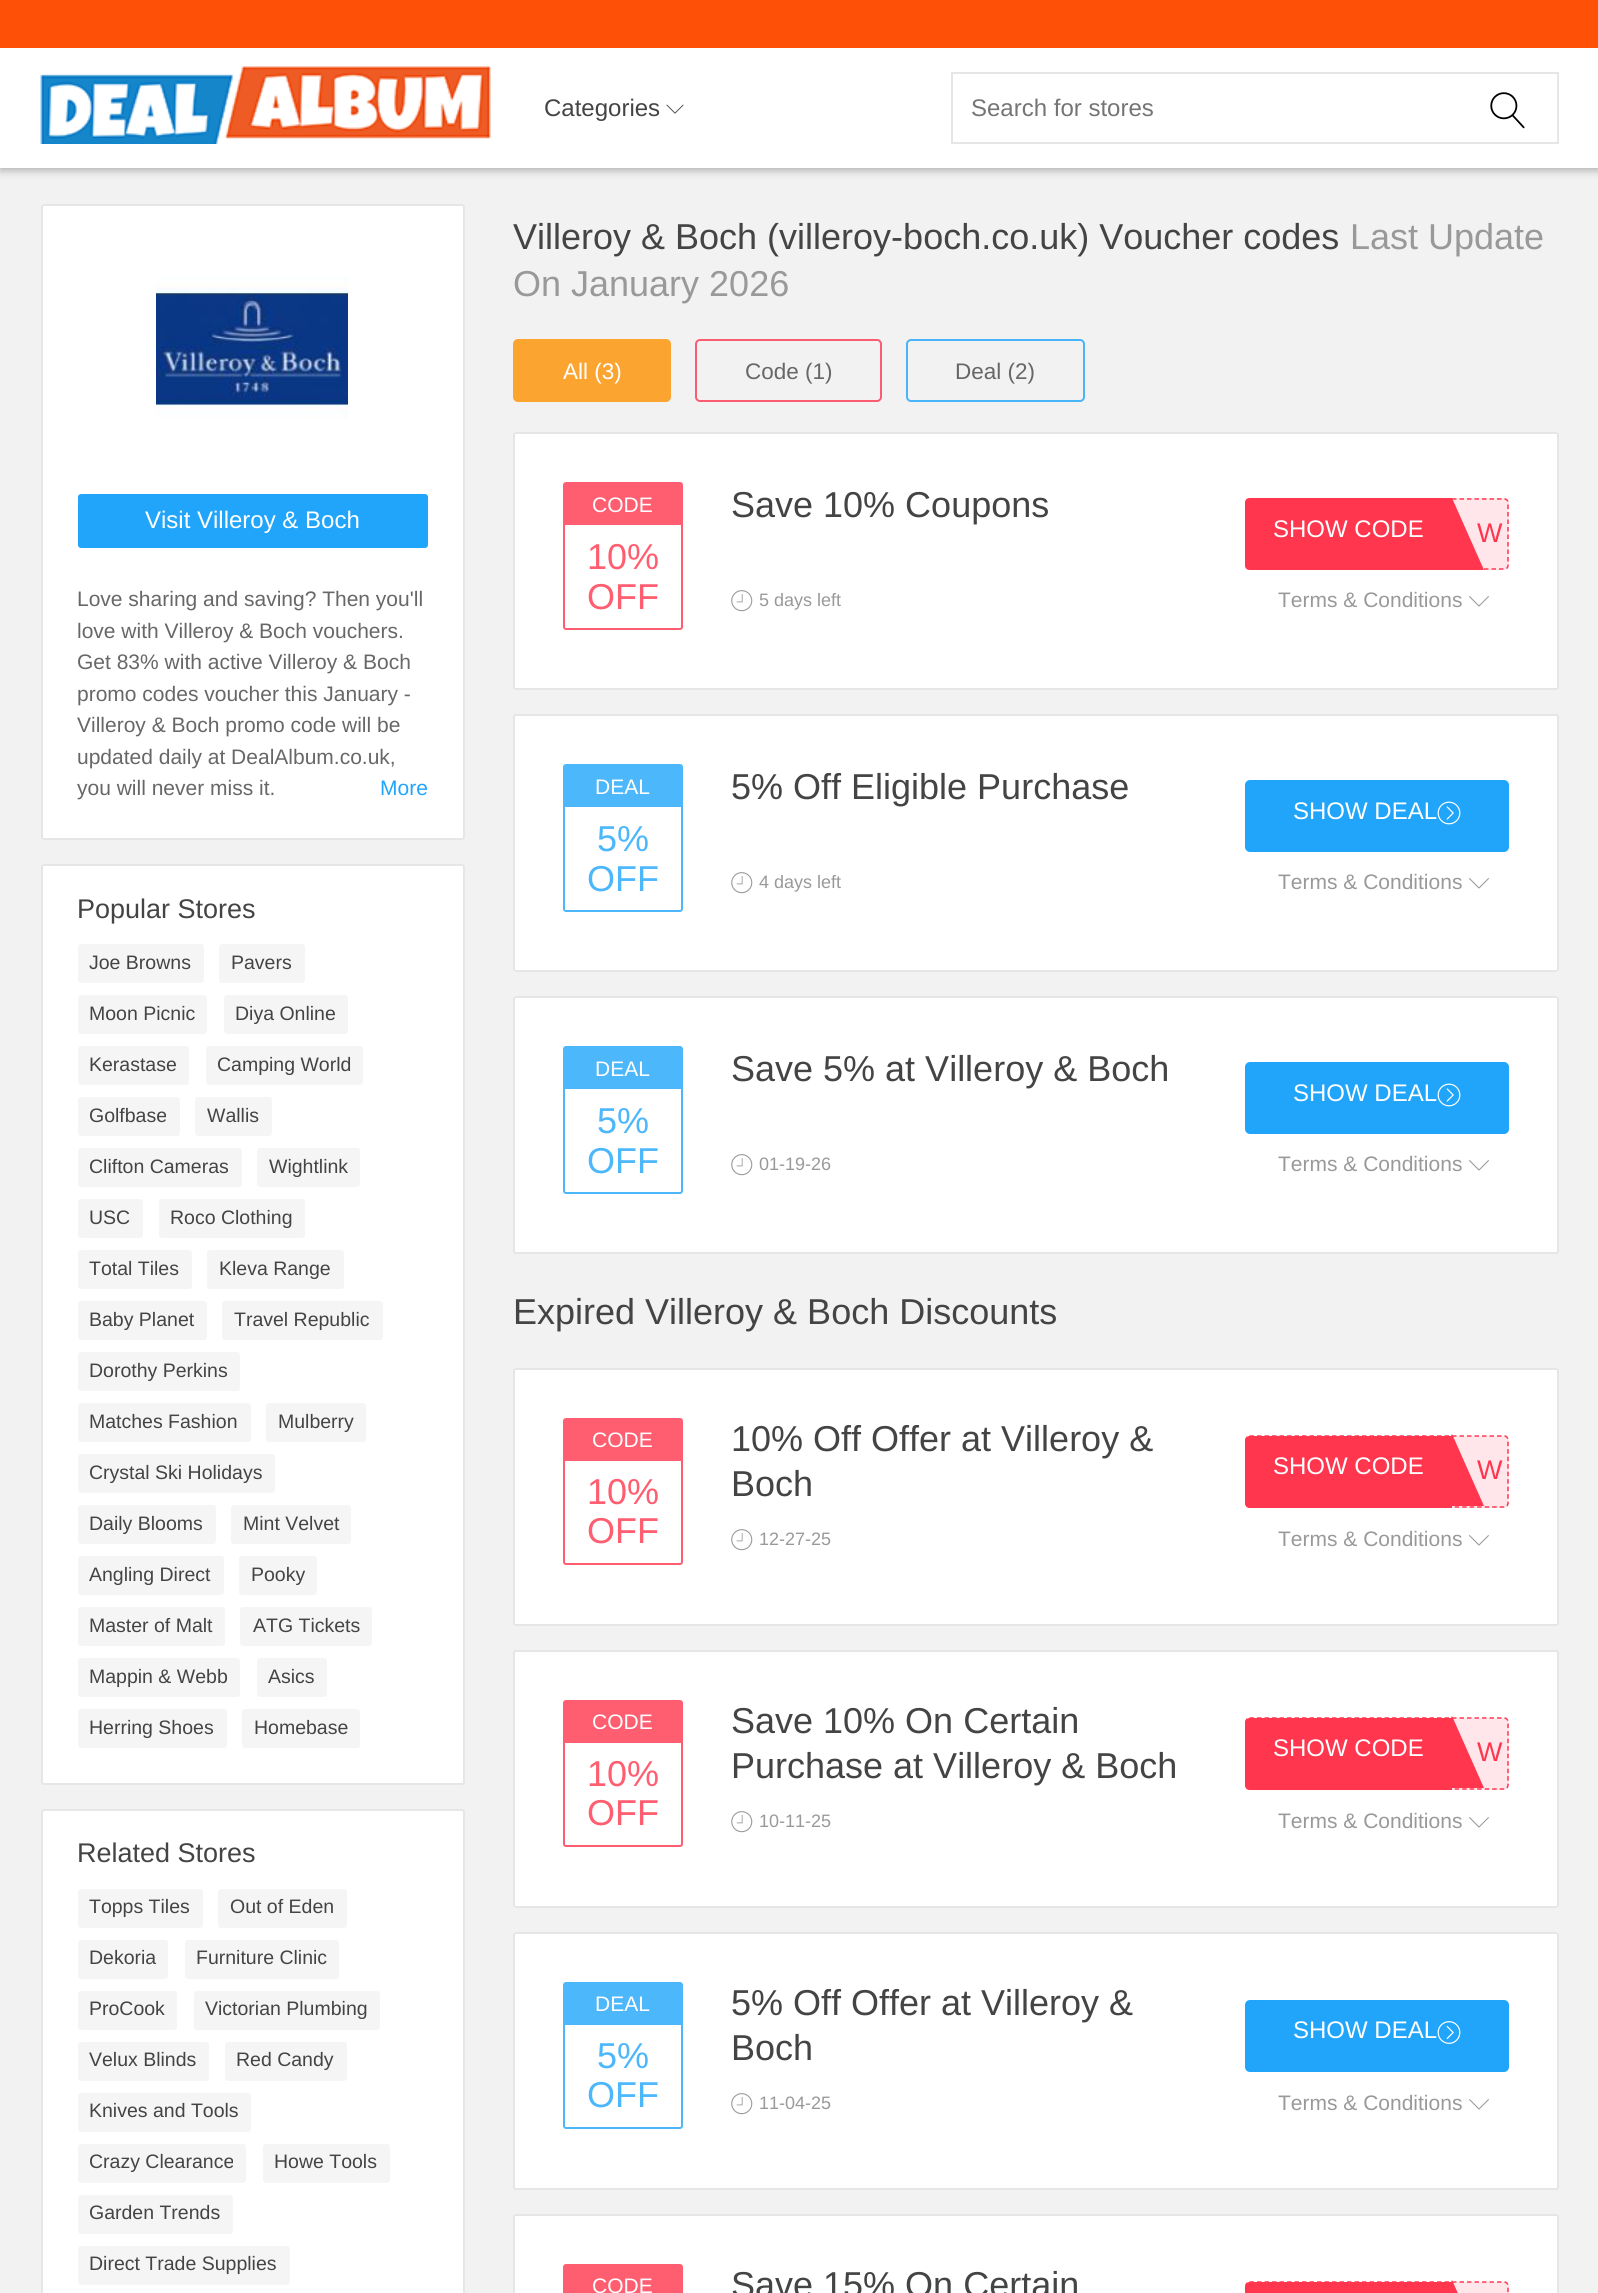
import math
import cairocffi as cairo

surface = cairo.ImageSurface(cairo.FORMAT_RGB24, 1598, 2293)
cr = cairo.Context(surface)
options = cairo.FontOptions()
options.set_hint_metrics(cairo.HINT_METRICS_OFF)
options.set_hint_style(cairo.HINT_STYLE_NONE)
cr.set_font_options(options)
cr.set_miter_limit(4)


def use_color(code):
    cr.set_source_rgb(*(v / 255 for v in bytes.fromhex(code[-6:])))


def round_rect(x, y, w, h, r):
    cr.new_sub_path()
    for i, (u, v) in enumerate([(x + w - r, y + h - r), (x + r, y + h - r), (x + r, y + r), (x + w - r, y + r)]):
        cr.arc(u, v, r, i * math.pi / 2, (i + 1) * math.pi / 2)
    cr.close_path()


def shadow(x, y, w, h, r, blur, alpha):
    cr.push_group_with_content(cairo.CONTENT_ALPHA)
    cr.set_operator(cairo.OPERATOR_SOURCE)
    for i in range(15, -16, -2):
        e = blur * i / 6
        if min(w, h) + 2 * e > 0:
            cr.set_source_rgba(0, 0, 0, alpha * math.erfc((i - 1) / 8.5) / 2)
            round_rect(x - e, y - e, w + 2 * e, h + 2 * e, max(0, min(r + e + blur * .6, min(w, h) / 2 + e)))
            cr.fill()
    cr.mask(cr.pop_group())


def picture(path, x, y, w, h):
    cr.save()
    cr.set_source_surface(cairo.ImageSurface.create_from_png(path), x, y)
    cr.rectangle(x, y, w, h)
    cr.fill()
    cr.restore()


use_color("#f2f2f2")
cr.paint()
use_color("#000000")
shadow(0, 3, 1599, 168, 0, 4, 0.26)
use_color("#ffffff")
cr.rectangle(0, 48, 1598, 120)
cr.fill()
use_color("#fe5007")
cr.rectangle(0, 0, 1598, 48)
cr.fill()
picture("img1.png", 40, 66, 451, 78)
cr.select_font_face("Liberation Sans")
cr.set_font_size(24)
use_color("#444444")
cr.move_to(544, 116)
cr.show_text("Categories")
picture("img2.png", 666, 104, 18, 10)
cr.rectangle(952, 73, 606, 70)
use_color("#e6e6e6")
cr.stroke()
use_color("#757575")
cr.move_to(971, 116)
cr.show_text("Search for stores")
picture("img3.png", 1490, 92, 35, 37)
use_color("#ffffff")
round_rect(41, 204, 424, 636, 3)
cr.fill()
round_rect(42, 205, 422, 634, 2)
cr.set_source_rgba(0, 0, 0, 0.1)
cr.stroke()
picture("img4.png", 156, 277, 192, 141)
use_color("#20a5fb")
round_rect(78, 494, 350, 54, 3)
cr.fill()
use_color("#ffffff")
cr.move_to(145, 528)
cr.show_text("Visit Villeroy & Boch")
cr.set_font_size(21)
use_color("#676767")
cr.move_to(77, 606)
cr.show_text("Love sharing and saving? Then you'll")
cr.move_to(77, 638)
cr.show_text("love with Villeroy & Boch vouchers.")
cr.move_to(77, 669)
cr.show_text("Get 83% with active Villeroy & Boch")
cr.move_to(77, 701)
cr.show_text("promo codes voucher this January -")
cr.move_to(77, 732)
cr.show_text("Villeroy & Boch promo code will be")
cr.move_to(77, 764)
cr.show_text("updated daily at DealAlbum.co.uk,")
cr.move_to(77, 795)
cr.show_text("you will never miss it.")
use_color("#20a5fb")
cr.move_to(380, 795)
cr.show_text("More")
use_color("#ffffff")
round_rect(41, 864, 424, 921, 3)
cr.fill()
round_rect(42, 865, 422, 919, 2)
cr.set_source_rgba(0, 0, 0, 0.1)
cr.stroke()
cr.set_font_size(27)
use_color("#444444")
cr.move_to(77, 918)
cr.show_text("Popular Stores")
use_color("#f5f5f5")
round_rect(78, 944, 126, 39, 3)
cr.fill()
cr.set_font_size(19.5)
use_color("#444444")
cr.move_to(89, 969)
cr.show_text("Joe Browns")
use_color("#f5f5f5")
round_rect(219, 944, 86, 39, 3)
cr.fill()
use_color("#444444")
cr.move_to(231, 969)
cr.show_text("Pavers")
use_color("#f5f5f5")
round_rect(78, 995, 129, 39, 3)
cr.fill()
use_color("#444444")
cr.move_to(89, 1020)
cr.show_text("Moon Picnic")
use_color("#f5f5f5")
round_rect(224, 995, 124, 39, 3)
cr.fill()
use_color("#444444")
cr.move_to(235, 1020)
cr.show_text("Diya Online")
use_color("#f5f5f5")
round_rect(78, 1046, 111, 39, 3)
cr.fill()
use_color("#444444")
cr.move_to(89, 1071)
cr.show_text("Kerastase")
use_color("#f5f5f5")
round_rect(206, 1046, 157, 39, 3)
cr.fill()
use_color("#444444")
cr.move_to(217, 1071)
cr.show_text("Camping World")
use_color("#f5f5f5")
round_rect(78, 1097, 102, 39, 3)
cr.fill()
use_color("#444444")
cr.move_to(89, 1122)
cr.show_text("Golfbase")
use_color("#f5f5f5")
round_rect(195, 1097, 77, 39, 3)
cr.fill()
use_color("#444444")
cr.move_to(207, 1122)
cr.show_text("Wallis")
use_color("#f5f5f5")
round_rect(78, 1148, 164, 39, 3)
cr.fill()
use_color("#444444")
cr.move_to(89, 1173)
cr.show_text("Clifton Cameras")
use_color("#f5f5f5")
round_rect(257, 1148, 103, 39, 3)
cr.fill()
use_color("#444444")
cr.move_to(269, 1173)
cr.show_text("Wightlink")
use_color("#f5f5f5")
round_rect(78, 1199, 65, 39, 3)
cr.fill()
use_color("#444444")
cr.move_to(89, 1224)
cr.show_text("USC")
use_color("#f5f5f5")
round_rect(159, 1199, 146, 39, 3)
cr.fill()
use_color("#444444")
cr.move_to(170, 1224)
cr.show_text("Roco Clothing")
use_color("#f5f5f5")
round_rect(78, 1250, 114, 39, 3)
cr.fill()
use_color("#444444")
cr.move_to(89, 1275)
cr.show_text("Total Tiles")
use_color("#f5f5f5")
round_rect(207, 1250, 137, 39, 3)
cr.fill()
use_color("#444444")
cr.move_to(219, 1275)
cr.show_text("Kleva Range")
use_color("#f5f5f5")
round_rect(78, 1301, 129, 39, 3)
cr.fill()
use_color("#444444")
cr.move_to(89, 1326)
cr.show_text("Baby Planet")
use_color("#f5f5f5")
round_rect(222, 1301, 161, 39, 3)
cr.fill()
use_color("#444444")
cr.move_to(234, 1326)
cr.show_text("Travel Republic")
use_color("#f5f5f5")
round_rect(78, 1352, 162, 39, 3)
cr.fill()
use_color("#444444")
cr.move_to(89, 1377)
cr.show_text("Dorothy Perkins")
use_color("#f5f5f5")
round_rect(78, 1403, 173, 39, 3)
cr.fill()
use_color("#444444")
cr.move_to(89, 1428)
cr.show_text("Matches Fashion")
use_color("#f5f5f5")
round_rect(266, 1403, 100, 39, 3)
cr.fill()
use_color("#444444")
cr.move_to(278, 1428)
cr.show_text("Mulberry")
use_color("#f5f5f5")
round_rect(78, 1454, 197, 39, 3)
cr.fill()
use_color("#444444")
cr.move_to(89, 1479)
cr.show_text("Crystal Ski Holidays")
use_color("#f5f5f5")
round_rect(78, 1505, 138, 39, 3)
cr.fill()
use_color("#444444")
cr.move_to(89, 1530)
cr.show_text("Daily Blooms")
use_color("#f5f5f5")
round_rect(231, 1505, 120, 39, 3)
cr.fill()
use_color("#444444")
cr.move_to(243, 1530)
cr.show_text("Mint Velvet")
use_color("#f5f5f5")
round_rect(78, 1556, 146, 39, 3)
cr.fill()
use_color("#444444")
cr.move_to(89, 1581)
cr.show_text("Angling Direct")
use_color("#f5f5f5")
round_rect(239, 1556, 78, 39, 3)
cr.fill()
use_color("#444444")
cr.move_to(251, 1581)
cr.show_text("Pooky")
use_color("#f5f5f5")
round_rect(78, 1607, 147, 39, 3)
cr.fill()
use_color("#444444")
cr.move_to(89, 1632)
cr.show_text("Master of Malt")
use_color("#f5f5f5")
round_rect(240, 1607, 132, 39, 3)
cr.fill()
use_color("#444444")
cr.move_to(253, 1632)
cr.show_text("ATG Tickets")
use_color("#f5f5f5")
round_rect(78, 1658, 162, 39, 3)
cr.fill()
use_color("#444444")
cr.move_to(89, 1683)
cr.show_text("Mappin & Webb")
use_color("#f5f5f5")
round_rect(257, 1658, 70, 39, 3)
cr.fill()
use_color("#444444")
cr.move_to(268, 1683)
cr.show_text("Asics")
use_color("#f5f5f5")
round_rect(78, 1709, 149, 39, 3)
cr.fill()
use_color("#444444")
cr.move_to(89, 1734)
cr.show_text("Herring Shoes")
use_color("#f5f5f5")
round_rect(242, 1709, 118, 39, 3)
cr.fill()
use_color("#444444")
cr.move_to(254, 1734)
cr.show_text("Homebase")
use_color("#ffffff")
round_rect(41, 1809, 424, 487, 3)
cr.fill()
round_rect(42, 1810, 422, 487, 2)
cr.set_source_rgba(0, 0, 0, 0.1)
cr.stroke()
cr.set_font_size(27)
use_color("#444444")
cr.move_to(77, 1862)
cr.show_text("Related Stores")
use_color("#f5f5f5")
round_rect(78, 1889, 125, 39, 3)
cr.fill()
cr.set_font_size(19.5)
use_color("#444444")
cr.move_to(89, 1913)
cr.show_text("Topps Tiles")
use_color("#f5f5f5")
round_rect(218, 1889, 129, 39, 3)
cr.fill()
use_color("#444444")
cr.move_to(230, 1913)
cr.show_text("Out of Eden")
use_color("#f5f5f5")
round_rect(78, 1940, 90, 39, 3)
cr.fill()
use_color("#444444")
cr.move_to(89, 1964)
cr.show_text("Dekoria")
use_color("#f5f5f5")
round_rect(185, 1940, 154, 39, 3)
cr.fill()
use_color("#444444")
cr.move_to(196, 1964)
cr.show_text("Furniture Clinic")
use_color("#f5f5f5")
round_rect(78, 1991, 99, 39, 3)
cr.fill()
use_color("#444444")
cr.move_to(89, 2015)
cr.show_text("ProCook")
use_color("#f5f5f5")
round_rect(194, 1991, 186, 39, 3)
cr.fill()
use_color("#444444")
cr.move_to(205, 2015)
cr.show_text("Victorian Plumbing")
use_color("#f5f5f5")
round_rect(78, 2042, 131, 39, 3)
cr.fill()
use_color("#444444")
cr.move_to(89, 2066)
cr.show_text("Velux Blinds")
use_color("#f5f5f5")
round_rect(225, 2042, 122, 39, 3)
cr.fill()
use_color("#444444")
cr.move_to(236, 2066)
cr.show_text("Red Candy")
use_color("#f5f5f5")
round_rect(78, 2093, 173, 39, 3)
cr.fill()
use_color("#444444")
cr.move_to(89, 2117)
cr.show_text("Knives and Tools")
use_color("#f5f5f5")
round_rect(78, 2144, 168, 39, 3)
cr.fill()
use_color("#444444")
cr.move_to(89, 2168)
cr.show_text("Crazy Clearance")
use_color("#f5f5f5")
round_rect(263, 2144, 127, 39, 3)
cr.fill()
use_color("#444444")
cr.move_to(274, 2168)
cr.show_text("Howe Tools")
use_color("#f5f5f5")
round_rect(78, 2195, 155, 39, 3)
cr.fill()
use_color("#444444")
cr.move_to(89, 2219)
cr.show_text("Garden Trends")
use_color("#f5f5f5")
round_rect(78, 2246, 212, 39, 3)
cr.fill()
use_color("#444444")
cr.move_to(89, 2270)
cr.show_text("Direct Trade Supplies")
cr.set_font_size(36)
cr.move_to(513, 249)
cr.show_text("Villeroy & Boch (villeroy-boch.co.uk) Voucher codes")
use_color("#999999")
cr.move_to(1350, 249)
cr.show_text("Last Update")
cr.move_to(513, 296)
cr.show_text("On January 2026")
use_color("#fca430")
round_rect(514, 340, 156, 61, 4)
cr.fill_preserve()
cr.stroke()
cr.set_font_size(22.5)
use_color("#ffffff")
cr.move_to(563, 379)
cr.show_text("All (3)")
round_rect(696, 340, 185, 61, 4)
use_color("#fc5c6f")
cr.stroke()
use_color("#676767")
cr.move_to(745, 379)
cr.show_text("Code (1)")
round_rect(907, 340, 177, 61, 4)
use_color("#4ab4f9")
cr.stroke()
use_color("#676767")
cr.move_to(955, 379)
cr.show_text("Deal (2)")
use_color("#ffffff")
round_rect(513, 432, 1046, 258, 3)
cr.fill()
round_rect(514, 433, 1044, 256, 2)
cr.set_source_rgba(0, 0, 0, 0.1)
cr.stroke()
round_rect(564, 483, 118, 146, 2)
use_color("#ff5e71")
cr.stroke()
cr.rectangle(565, 484, 116, 41)
cr.fill()
cr.set_font_size(21)
use_color("#ffffff")
cr.move_to(592, 512)
cr.show_text("CODE")
cr.set_font_size(36)
use_color("#ff5e71")
cr.move_to(587, 569)
cr.show_text("10%")
cr.move_to(587, 609)
cr.show_text("OFF")
use_color("#444444")
cr.move_to(731, 517)
cr.show_text("Save 10% Coupons")
use_color("#ffe6eb")
round_rect(1245, 498, 264, 72, 5)
cr.fill()
cr.new_path()
cr.move_to(1249.5, 499)
cr.line_to(1504.5, 499)
cr.curve_to(1506.5, 499, 1508, 500.5, 1508, 502.5)
cr.line_to(1508, 565.5)
cr.curve_to(1508, 567.5, 1506.5, 569, 1504.5, 569)
cr.line_to(1249.5, 569)
cr.curve_to(1247.5, 569, 1246, 567.5, 1246, 565.5)
cr.line_to(1246, 502.5)
cr.curve_to(1246, 500.5, 1247.5, 499, 1249.5, 499)
cr.close_path()
use_color("#ff364e")
cr.set_line_width(1.5)
cr.set_dash([4.5, 3])
cr.stroke()
cr.new_path()
cr.move_to(1250, 498)
cr.line_to(1452, 498)
cr.line_to(1452, 570)
cr.line_to(1250, 570)
cr.curve_to(1247, 570, 1245, 568, 1245, 565)
cr.line_to(1245, 503)
cr.curve_to(1245, 500, 1247, 498, 1250, 498)
cr.close_path()
cr.fill()
cr.set_font_size(24)
use_color("#ffffff")
cr.move_to(1273, 537)
cr.show_text("SHOW CODE")
use_color("#ff364e")
cr.new_path()
cr.move_to(1484, 570)
cr.line_to(1420, 570)
cr.line_to(1452, 498)
cr.close_path()
cr.fill()
cr.set_font_size(27)
cr.move_to(1477, 542)
cr.show_text("W")
picture("img5.png", 731, 590, 22, 22)
cr.set_font_size(18)
use_color("#999999")
cr.move_to(759, 606)
cr.show_text("5 days left")
cr.set_font_size(21)
cr.move_to(1278, 607)
cr.show_text("Terms & Conditions")
picture("img6.png", 1469, 596, 20, 11)
use_color("#ffffff")
round_rect(513, 714, 1046, 258, 3)
cr.fill()
round_rect(514, 715, 1044, 256, 2)
cr.set_source_rgba(0, 0, 0, 0.1)
cr.set_line_width(2)
cr.set_dash([])
cr.stroke()
round_rect(564, 765, 118, 146, 2)
use_color("#4db7fc")
cr.stroke()
cr.rectangle(565, 766, 116, 41)
cr.fill()
use_color("#ffffff")
cr.move_to(595, 794)
cr.show_text("DEAL")
cr.set_font_size(36)
use_color("#4db7fc")
cr.move_to(597, 851)
cr.show_text("5%")
cr.move_to(587, 891)
cr.show_text("OFF")
use_color("#444444")
cr.move_to(731, 799)
cr.show_text("5% Off Eligible Purchase")
use_color("#20a5fb")
round_rect(1245, 780, 264, 72, 5)
cr.fill()
cr.set_font_size(24)
use_color("#ffffff")
cr.move_to(1293, 819)
cr.show_text("SHOW DEAL")
picture("img7.png", 1437, 801, 24, 24)
picture("img5.png", 731, 872, 22, 22)
cr.set_font_size(18)
use_color("#999999")
cr.move_to(759, 888)
cr.show_text("4 days left")
cr.set_font_size(21)
cr.move_to(1278, 889)
cr.show_text("Terms & Conditions")
picture("img6.png", 1469, 878, 20, 11)
use_color("#ffffff")
round_rect(513, 996, 1046, 258, 3)
cr.fill()
round_rect(514, 997, 1044, 256, 2)
cr.set_source_rgba(0, 0, 0, 0.1)
cr.stroke()
round_rect(564, 1047, 118, 146, 2)
use_color("#4db7fc")
cr.stroke()
cr.rectangle(565, 1048, 116, 41)
cr.fill()
use_color("#ffffff")
cr.move_to(595, 1076)
cr.show_text("DEAL")
cr.set_font_size(36)
use_color("#4db7fc")
cr.move_to(597, 1133)
cr.show_text("5%")
cr.move_to(587, 1173)
cr.show_text("OFF")
use_color("#444444")
cr.move_to(731, 1081)
cr.show_text("Save 5% at Villeroy & Boch")
use_color("#20a5fb")
round_rect(1245, 1062, 264, 72, 5)
cr.fill()
cr.set_font_size(24)
use_color("#ffffff")
cr.move_to(1293, 1101)
cr.show_text("SHOW DEAL")
picture("img7.png", 1437, 1083, 24, 24)
picture("img5.png", 731, 1154, 22, 22)
cr.set_font_size(18)
use_color("#999999")
cr.move_to(759, 1170)
cr.show_text("01-19-26")
cr.set_font_size(21)
cr.move_to(1278, 1171)
cr.show_text("Terms & Conditions")
picture("img6.png", 1469, 1160, 20, 11)
cr.set_font_size(36)
use_color("#444444")
cr.move_to(513, 1324)
cr.show_text("Expired Villeroy & Boch Discounts")
use_color("#ffffff")
round_rect(513, 1368, 1046, 258, 3)
cr.fill()
round_rect(514, 1369, 1044, 256, 2)
cr.set_source_rgba(0, 0, 0, 0.1)
cr.stroke()
round_rect(564, 1419, 118, 145, 2)
use_color("#ff5e71")
cr.stroke()
cr.rectangle(565, 1420, 116, 41)
cr.fill()
cr.set_font_size(21)
use_color("#ffffff")
cr.move_to(592, 1447)
cr.show_text("CODE")
cr.set_font_size(36)
use_color("#ff5e71")
cr.move_to(587, 1504)
cr.show_text("10%")
cr.move_to(587, 1543)
cr.show_text("OFF")
use_color("#444444")
cr.move_to(731, 1451)
cr.show_text("10% Off Offer at Villeroy &")
cr.move_to(731, 1496)
cr.show_text("Boch")
use_color("#ffe6eb")
round_rect(1245, 1436, 264, 72, 5)
cr.fill()
cr.new_path()
cr.move_to(1249.5, 1436)
cr.line_to(1504.5, 1436)
cr.curve_to(1506.5, 1436, 1508, 1438, 1508, 1440)
cr.line_to(1508, 1503)
cr.curve_to(1508, 1505, 1506.5, 1507, 1504.5, 1507)
cr.line_to(1249.5, 1507)
cr.curve_to(1247.5, 1507, 1246, 1505, 1246, 1503)
cr.line_to(1246, 1440)
cr.curve_to(1246, 1438, 1247.5, 1436, 1249.5, 1436)
cr.close_path()
use_color("#ff364e")
cr.set_line_width(1.5)
cr.set_dash([4.5, 3])
cr.stroke()
cr.new_path()
cr.move_to(1250, 1436)
cr.line_to(1452, 1436)
cr.line_to(1452, 1508)
cr.line_to(1250, 1508)
cr.curve_to(1247, 1508, 1245, 1506, 1245, 1503)
cr.line_to(1245, 1441)
cr.curve_to(1245, 1438, 1247, 1436, 1250, 1436)
cr.close_path()
cr.fill()
cr.set_font_size(24)
use_color("#ffffff")
cr.move_to(1273, 1474)
cr.show_text("SHOW CODE")
use_color("#ff364e")
cr.new_path()
cr.move_to(1484, 1506)
cr.line_to(1420, 1506)
cr.line_to(1452, 1434)
cr.close_path()
cr.fill()
cr.set_font_size(27)
cr.move_to(1477, 1479)
cr.show_text("W")
picture("img5.png", 731, 1529, 22, 22)
cr.set_font_size(18)
use_color("#999999")
cr.move_to(759, 1545)
cr.show_text("12-27-25")
cr.set_font_size(21)
cr.move_to(1278, 1546)
cr.show_text("Terms & Conditions")
picture("img6.png", 1469, 1535, 20, 11)
use_color("#ffffff")
round_rect(513, 1650, 1046, 258, 3)
cr.fill()
round_rect(514, 1651, 1044, 256, 2)
cr.set_source_rgba(0, 0, 0, 0.1)
cr.set_line_width(2)
cr.set_dash([])
cr.stroke()
round_rect(564, 1701, 118, 145, 2)
use_color("#ff5e71")
cr.stroke()
cr.rectangle(565, 1702, 116, 41)
cr.fill()
use_color("#ffffff")
cr.move_to(592, 1729)
cr.show_text("CODE")
cr.set_font_size(36)
use_color("#ff5e71")
cr.move_to(587, 1786)
cr.show_text("10%")
cr.move_to(587, 1825)
cr.show_text("OFF")
use_color("#444444")
cr.move_to(731, 1733)
cr.show_text("Save 10% On Certain")
cr.move_to(731, 1778)
cr.show_text("Purchase at Villeroy & Boch")
use_color("#ffe6eb")
round_rect(1245, 1718, 264, 72, 5)
cr.fill()
cr.new_path()
cr.move_to(1249.5, 1718)
cr.line_to(1504.5, 1718)
cr.curve_to(1506.5, 1718, 1508, 1720, 1508, 1722)
cr.line_to(1508, 1785)
cr.curve_to(1508, 1787, 1506.5, 1789, 1504.5, 1789)
cr.line_to(1249.5, 1789)
cr.curve_to(1247.5, 1789, 1246, 1787, 1246, 1785)
cr.line_to(1246, 1722)
cr.curve_to(1246, 1720, 1247.5, 1718, 1249.5, 1718)
cr.close_path()
use_color("#ff364e")
cr.set_line_width(1.5)
cr.set_dash([4.5, 3])
cr.stroke()
cr.new_path()
cr.move_to(1250, 1718)
cr.line_to(1452, 1718)
cr.line_to(1452, 1790)
cr.line_to(1250, 1790)
cr.curve_to(1247, 1790, 1245, 1788, 1245, 1785)
cr.line_to(1245, 1723)
cr.curve_to(1245, 1720, 1247, 1718, 1250, 1718)
cr.close_path()
cr.fill()
cr.set_font_size(24)
use_color("#ffffff")
cr.move_to(1273, 1756)
cr.show_text("SHOW CODE")
use_color("#ff364e")
cr.new_path()
cr.move_to(1484, 1788)
cr.line_to(1420, 1788)
cr.line_to(1452, 1716)
cr.close_path()
cr.fill()
cr.set_font_size(27)
cr.move_to(1477, 1761)
cr.show_text("W")
picture("img5.png", 731, 1811, 22, 22)
cr.set_font_size(18)
use_color("#999999")
cr.move_to(759, 1827)
cr.show_text("10-11-25")
cr.set_font_size(21)
cr.move_to(1278, 1828)
cr.show_text("Terms & Conditions")
picture("img6.png", 1469, 1817, 20, 11)
use_color("#ffffff")
round_rect(513, 1932, 1046, 258, 3)
cr.fill()
round_rect(514, 1933, 1044, 256, 2)
cr.set_source_rgba(0, 0, 0, 0.1)
cr.set_line_width(2)
cr.set_dash([])
cr.stroke()
round_rect(564, 1983, 118, 145, 2)
use_color("#4db7fc")
cr.stroke()
cr.rectangle(565, 1984, 116, 41)
cr.fill()
use_color("#ffffff")
cr.move_to(595, 2011)
cr.show_text("DEAL")
cr.set_font_size(36)
use_color("#4db7fc")
cr.move_to(597, 2068)
cr.show_text("5%")
cr.move_to(587, 2107)
cr.show_text("OFF")
use_color("#444444")
cr.move_to(731, 2015)
cr.show_text("5% Off Offer at Villeroy &")
cr.move_to(731, 2060)
cr.show_text("Boch")
use_color("#20a5fb")
round_rect(1245, 2000, 264, 72, 5)
cr.fill()
cr.set_font_size(24)
use_color("#ffffff")
cr.move_to(1293, 2038)
cr.show_text("SHOW DEAL")
picture("img8.png", 1437, 2021, 24, 23)
picture("img5.png", 731, 2093, 22, 22)
cr.set_font_size(18)
use_color("#999999")
cr.move_to(759, 2109)
cr.show_text("11-04-25")
cr.set_font_size(21)
cr.move_to(1278, 2110)
cr.show_text("Terms & Conditions")
picture("img6.png", 1469, 2099, 20, 11)
use_color("#ffffff")
round_rect(513, 2214, 1046, 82, 3)
cr.fill()
round_rect(514, 2215, 1044, 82, 2)
cr.set_source_rgba(0, 0, 0, 0.1)
cr.stroke()
round_rect(564, 2265, 118, 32, 2)
use_color("#ff5e71")
cr.stroke()
cr.rectangle(565, 2266, 116, 27)
cr.fill()
use_color("#ffffff")
cr.move_to(592, 2293)
cr.show_text("CODE")
cr.set_font_size(36)
use_color("#444444")
cr.move_to(731, 2297)
cr.show_text("Save 15% On Certain")
use_color("#ffe6eb")
round_rect(1245, 2282, 264, 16, 5)
cr.fill()
cr.new_path()
cr.move_to(1249.5, 2282)
cr.line_to(1504.5, 2282)
cr.curve_to(1506.5, 2282, 1508, 2284, 1508, 2286)
cr.line_to(1508, 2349)
cr.curve_to(1508, 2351, 1506.5, 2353, 1504.5, 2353)
cr.line_to(1249.5, 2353)
cr.curve_to(1247.5, 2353, 1246, 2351, 1246, 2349)
cr.line_to(1246, 2286)
cr.curve_to(1246, 2284, 1247.5, 2282, 1249.5, 2282)
cr.close_path()
use_color("#ff364e")
cr.set_line_width(1.5)
cr.set_dash([4.5, 3])
cr.stroke()
cr.new_path()
cr.move_to(1250, 2282)
cr.line_to(1452, 2282)
cr.line_to(1452, 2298)
cr.line_to(1250, 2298)
cr.curve_to(1247, 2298, 1245, 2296, 1245, 2293)
cr.line_to(1245, 2287)
cr.curve_to(1245, 2284, 1247, 2282, 1250, 2282)
cr.close_path()
cr.fill()
cr.new_path()
cr.move_to(1484, 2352)
cr.line_to(1420, 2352)
cr.line_to(1452, 2280)
cr.close_path()
cr.fill()
surface.write_to_png("result.png")
